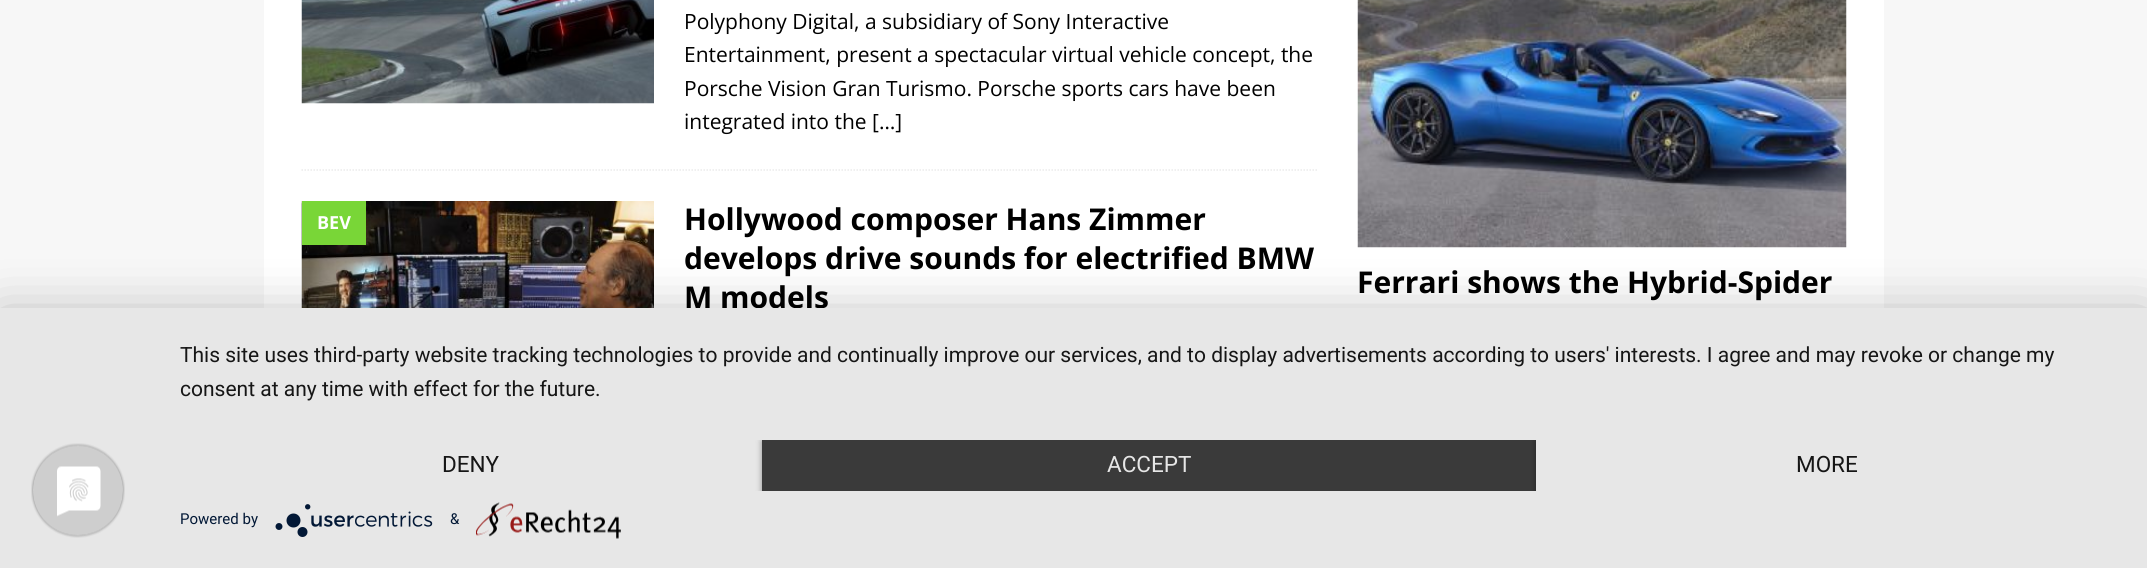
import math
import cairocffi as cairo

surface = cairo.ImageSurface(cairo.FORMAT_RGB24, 2147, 568)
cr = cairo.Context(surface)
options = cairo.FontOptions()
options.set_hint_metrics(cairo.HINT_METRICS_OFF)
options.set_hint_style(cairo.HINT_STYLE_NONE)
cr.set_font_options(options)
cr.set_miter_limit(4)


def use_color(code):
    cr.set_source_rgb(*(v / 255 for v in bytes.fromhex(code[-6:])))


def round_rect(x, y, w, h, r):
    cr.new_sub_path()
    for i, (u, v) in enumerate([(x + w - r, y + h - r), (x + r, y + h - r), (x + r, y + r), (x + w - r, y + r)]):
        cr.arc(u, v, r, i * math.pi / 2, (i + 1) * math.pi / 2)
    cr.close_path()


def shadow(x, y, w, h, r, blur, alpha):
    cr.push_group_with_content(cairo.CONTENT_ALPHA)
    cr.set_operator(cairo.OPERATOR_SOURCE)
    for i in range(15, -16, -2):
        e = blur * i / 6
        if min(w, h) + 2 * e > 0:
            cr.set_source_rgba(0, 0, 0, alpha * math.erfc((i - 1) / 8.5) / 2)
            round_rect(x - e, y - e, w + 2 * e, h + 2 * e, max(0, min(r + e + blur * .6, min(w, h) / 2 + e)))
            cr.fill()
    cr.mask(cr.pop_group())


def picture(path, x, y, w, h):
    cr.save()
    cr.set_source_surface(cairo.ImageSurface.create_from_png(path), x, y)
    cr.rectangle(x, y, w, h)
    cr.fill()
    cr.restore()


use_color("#f7f7f7")
cr.paint()
use_color("#ffffff")
cr.rectangle(264, 0, 1620, 308)
cr.fill()
cr.new_path()
cr.move_to(301.5, 170)
cr.line_to(1318.5, 170)
use_color("#ebebeb")
cr.set_line_width(1.5)
cr.set_dash([1.5, 1.5])
cr.stroke()
picture("img1.png", 301, 0, 353, 104)
cr.select_font_face("Open Sans")
cr.set_font_size(21)
use_color("#000000")
cr.move_to(684, 29)
cr.show_text("Polyphony Digital, a subsidiary of Sony Interactive")
cr.move_to(684, 62)
cr.show_text("Entertainment, present a spectacular virtual vehicle concept, the")
cr.move_to(684, 96)
cr.show_text("Porsche Vision Gran Turismo. Porsche sports cars have been")
cr.move_to(684, 129)
cr.show_text("integrated into the […]")
picture("img2.png", 301, 201, 353, 107)
use_color("#79d637")
cr.rectangle(302, 201, 64, 44)
cr.fill()
cr.select_font_face("Open Sans", cairo.FONT_SLANT_NORMAL, cairo.FONT_WEIGHT_BOLD)
cr.set_font_size(18)
use_color("#ffffff")
cr.move_to(317, 229)
cr.show_text("BEV")
cr.set_font_size(30)
use_color("#000000")
cr.move_to(684, 230)
cr.show_text("Hollywood composer Hans Zimmer")
cr.move_to(684, 269)
cr.show_text("develops drive sounds for electrified BMW")
cr.move_to(684, 308)
cr.show_text("M models")
picture("img3.png", 1357, 0, 490, 248)
cr.move_to(1357, 293)
cr.show_text("Ferrari shows the Hybrid-Spider")
use_color("#000000")
shadow(0, 317, 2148, 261, 0, 27, 0.3)
use_color("#e7e7e7")
cr.rectangle(0, 308, 2147, 260)
cr.fill()
picture("img4.png", 31, 443, 94, 95)
cr.select_font_face("Roboto")
cr.set_font_size(21)
use_color("#161616")
cr.move_to(180, 362)
cr.show_text("This site uses third-party website tracking technologies to provide and continually improve our services, and to display advertisements according to users' interests. I agree and may revoke or change my")
cr.move_to(180, 396)
cr.show_text("consent at any time with effect for the future.")
cr.set_font_size(22.5)
cr.move_to(442, 472)
cr.show_text("DENY")
cr.save()
cr.rectangle(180, 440, 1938, 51)
cr.clip()
use_color("#000000")
shadow(762, 441, 774, 51, 0, 3, 0.4)
cr.restore()
use_color("#3a3a3a")
cr.rectangle(762, 440, 774, 51)
cr.fill()
use_color("#e6e6e6")
cr.move_to(1107, 472)
cr.show_text("ACCEPT")
cr.save()
cr.rectangle(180, 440, 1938, 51)
cr.clip()
use_color("#000000")
shadow(1536, 441, 582, 51, 0, 3, 0.4)
cr.restore()
use_color("#e7e7e7")
cr.rectangle(1536, 440, 582, 51)
cr.fill()
use_color("#161616")
cr.move_to(1796, 472)
cr.show_text("MORE")
cr.set_font_size(15)
use_color("#021836")
cr.move_to(180, 524)
cr.show_text("Powered by")
picture("img5.png", 275, 504, 158, 33)
cr.move_to(450, 524)
cr.show_text("&")
picture("img6.png", 476, 502, 145, 37)
surface.write_to_png("result.png")
